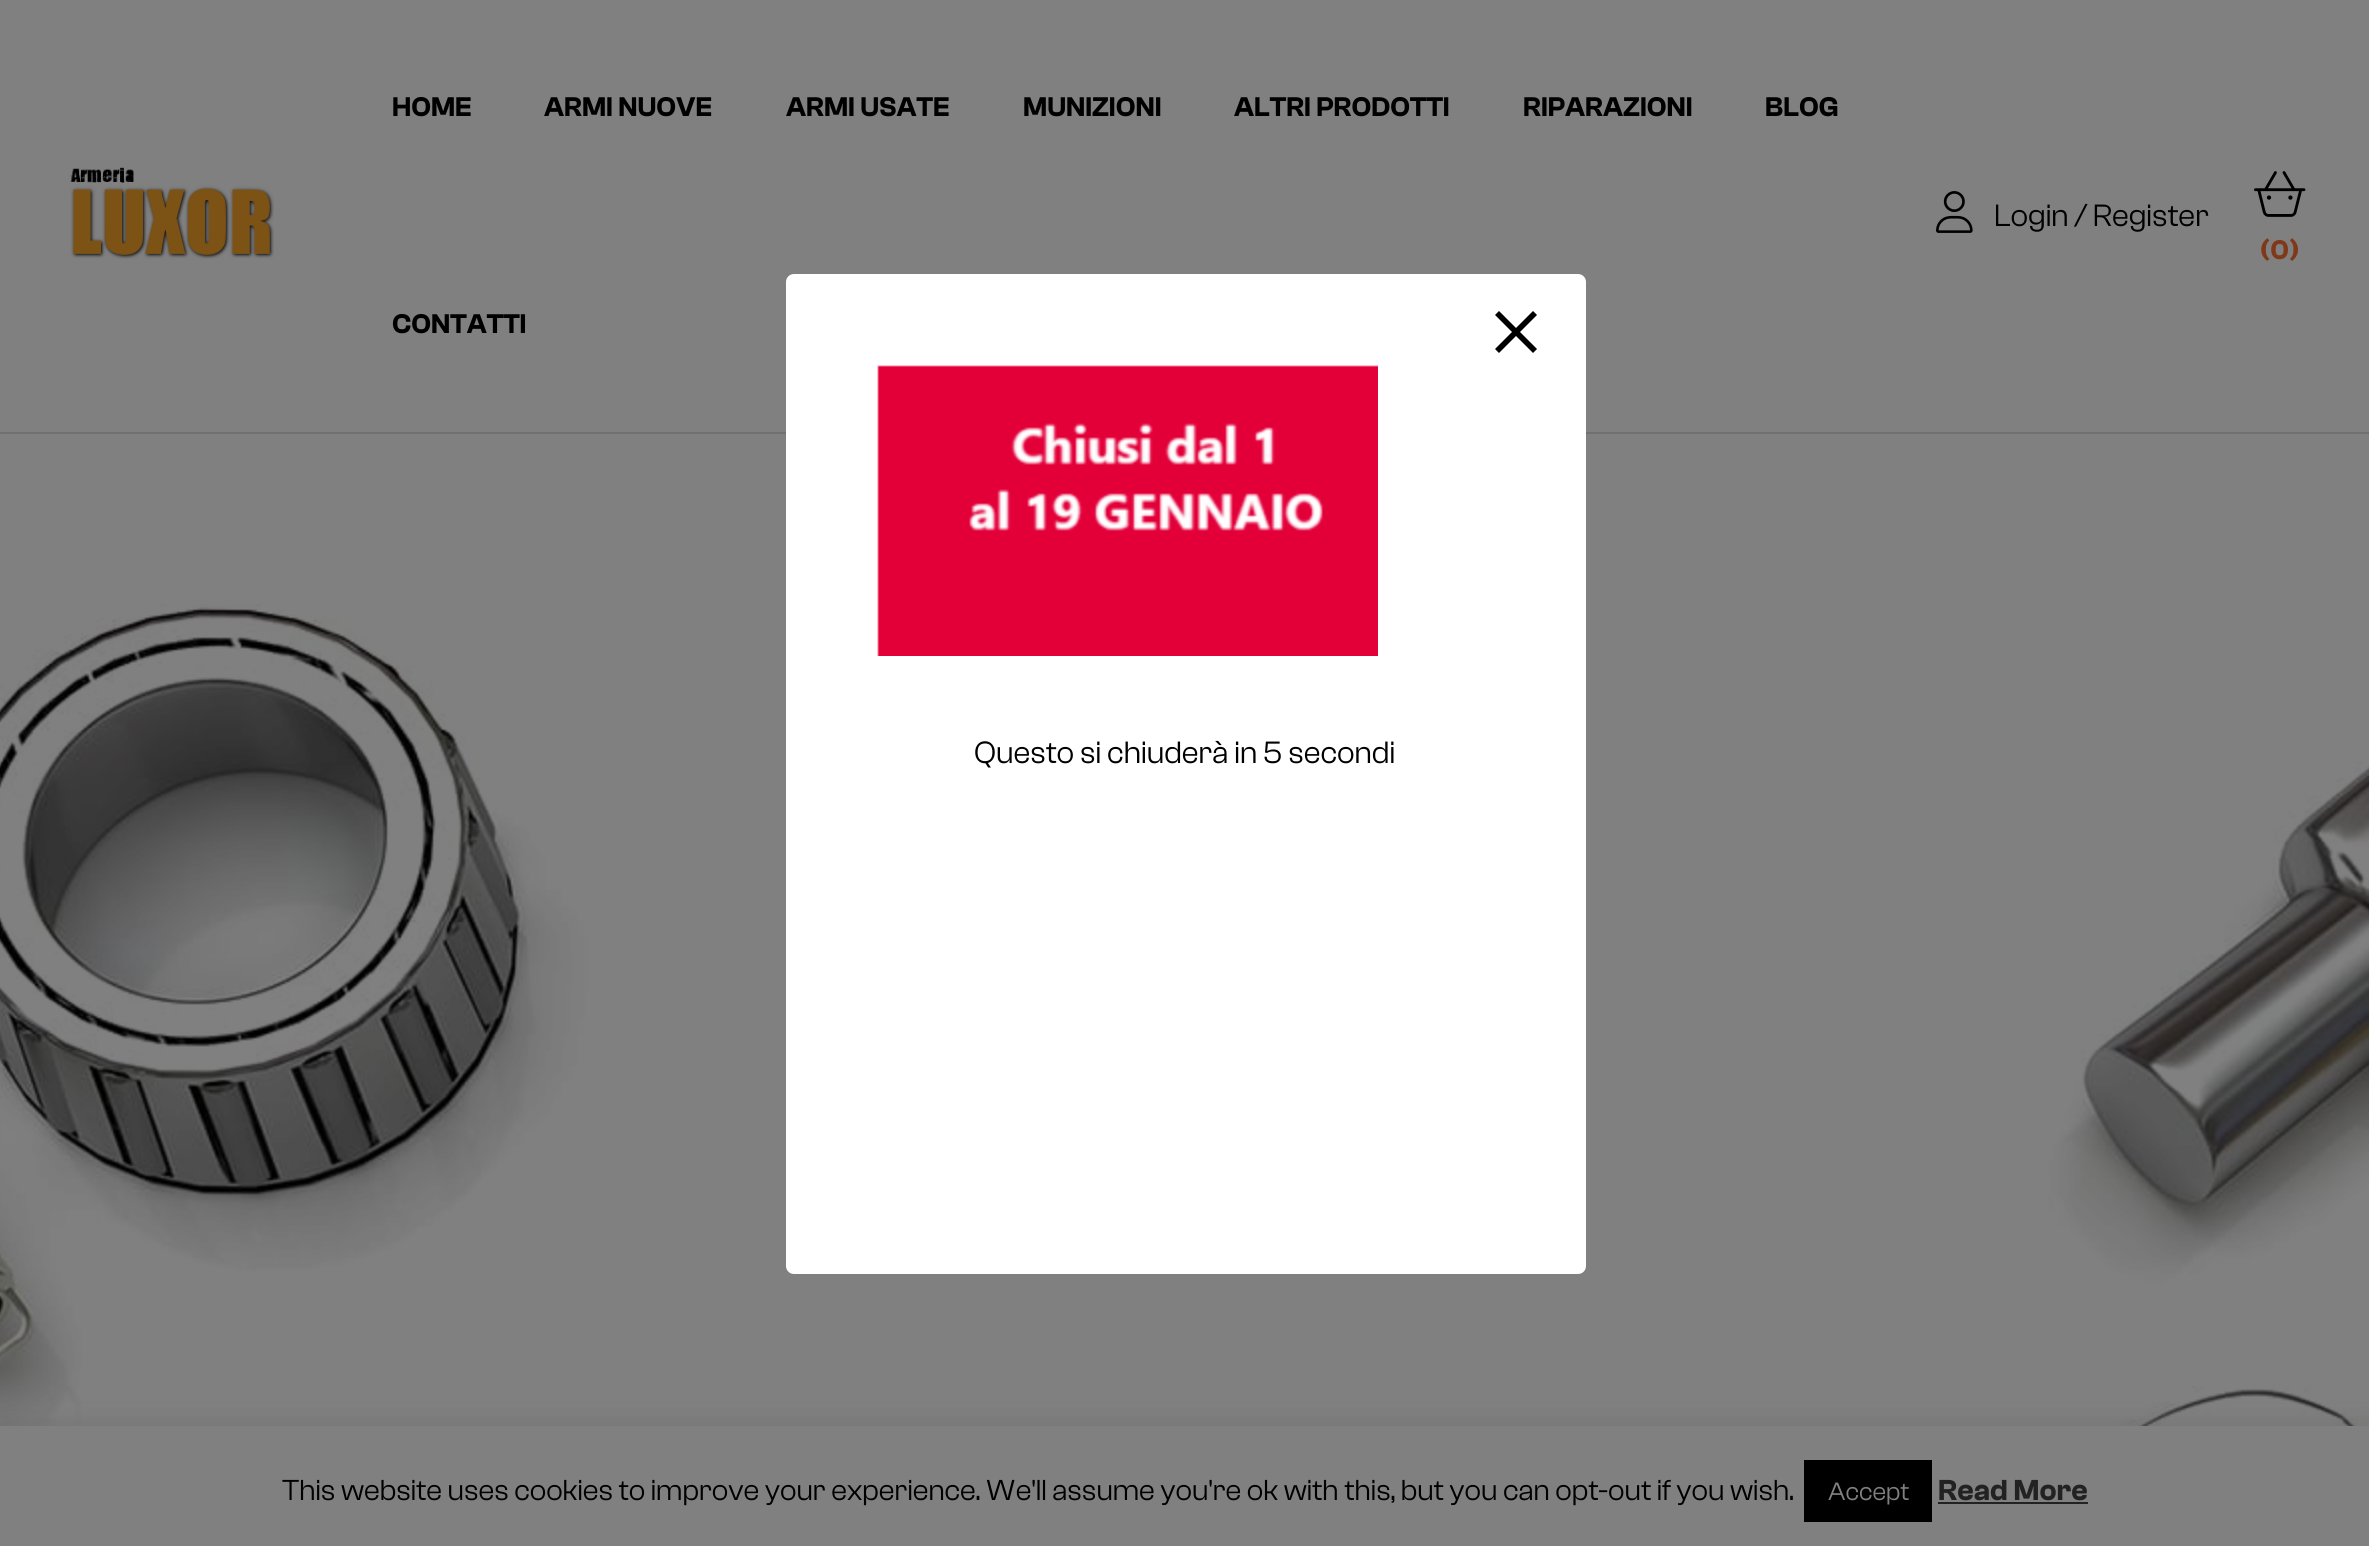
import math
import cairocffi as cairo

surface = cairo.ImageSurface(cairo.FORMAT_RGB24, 2369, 1546)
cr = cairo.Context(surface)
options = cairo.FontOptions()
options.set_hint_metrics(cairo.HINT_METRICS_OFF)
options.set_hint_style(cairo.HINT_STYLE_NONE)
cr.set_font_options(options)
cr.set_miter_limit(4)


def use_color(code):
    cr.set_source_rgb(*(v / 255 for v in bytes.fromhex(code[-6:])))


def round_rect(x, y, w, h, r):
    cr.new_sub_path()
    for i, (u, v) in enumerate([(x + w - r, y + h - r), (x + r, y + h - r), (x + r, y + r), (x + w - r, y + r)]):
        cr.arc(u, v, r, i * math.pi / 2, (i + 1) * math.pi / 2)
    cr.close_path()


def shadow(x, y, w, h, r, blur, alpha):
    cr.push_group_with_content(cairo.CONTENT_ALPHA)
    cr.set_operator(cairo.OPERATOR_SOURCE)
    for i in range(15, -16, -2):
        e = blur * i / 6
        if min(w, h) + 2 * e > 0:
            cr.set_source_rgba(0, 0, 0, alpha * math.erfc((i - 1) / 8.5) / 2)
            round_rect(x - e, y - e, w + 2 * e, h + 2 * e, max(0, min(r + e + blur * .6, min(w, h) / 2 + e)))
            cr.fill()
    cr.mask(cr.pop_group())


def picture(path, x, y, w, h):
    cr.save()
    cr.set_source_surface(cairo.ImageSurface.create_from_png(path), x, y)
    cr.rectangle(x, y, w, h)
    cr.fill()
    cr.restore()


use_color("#808080")
cr.paint()
use_color("#6e7071")
cr.rectangle(0, 432, 2369, 2)
cr.fill()
picture("img1.png", 70, 167, 204, 92)
cr.select_font_face("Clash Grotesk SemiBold")
cr.set_font_size(28)
use_color("#000000")
cr.move_to(392, 116)
cr.show_text("HOME")
cr.move_to(544, 116)
cr.show_text("ARMI NUOVE")
cr.move_to(786, 116)
cr.show_text("ARMI USATE")
cr.move_to(1023, 116)
cr.show_text("MUNIZIONI")
cr.move_to(1234, 116)
cr.show_text("ALTRI PRODOTTI")
cr.move_to(1523, 116)
cr.show_text("RIPARAZIONI")
cr.move_to(1765, 116)
cr.show_text("BLOG")
cr.move_to(392, 333)
cr.show_text("CONTATTI")
picture("img2.png", 1936, 191, 37, 42)
cr.select_font_face("Clash Grotesk")
cr.set_font_size(32)
cr.move_to(1994, 226)
cr.show_text("Login / Register")
picture("img3.png", 2254, 171, 52, 46)
cr.select_font_face("Clash Grotesk SemiBold")
cr.set_font_size(28)
use_color("#7f3919")
cr.move_to(2260, 259)
cr.show_text("(0)")
picture("img4.png", 0, 604, 2369, 822)
use_color("#ffffff")
round_rect(787, 275, 798, 998, 7)
cr.fill_preserve()
cr.stroke()
use_color("#000000")
cr.new_path()
cr.move_to(1537, 315)
cr.line_to(1533, 311)
cr.line_to(1516, 328)
cr.line_to(1499, 311)
cr.line_to(1495, 315)
cr.line_to(1512, 332)
cr.line_to(1495, 349)
cr.line_to(1499, 353)
cr.line_to(1516, 336)
cr.line_to(1533, 353)
cr.line_to(1537, 349)
cr.line_to(1520, 332)
cr.close_path()
cr.fill()
picture("img5.png", 877, 365, 501, 291)
cr.select_font_face("Clash Grotesk")
cr.set_font_size(32)
cr.move_to(974, 763)
cr.show_text("Questo si chiuderà in 5 secondi")
use_color("#565656")
shadow(0, 1424, 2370, 120, 0, 10, 0.3)
use_color("#808080")
cr.rectangle(0, 1426, 2369, 120)
cr.fill()
cr.set_font_size(30)
use_color("#000000")
cr.move_to(282, 1500)
cr.show_text("This website uses cookies to improve your experience. We'll assume you're ok with this, but you can opt-out if you wish.")
cr.rectangle(1804, 1460, 128, 62)
cr.fill()
cr.set_font_size(26)
use_color("#808080")
cr.move_to(1828, 1500)
cr.show_text("Accept")
cr.select_font_face("Clash Grotesk SemiBold")
cr.set_font_size(30)
use_color("#222222")
cr.move_to(1938, 1500)
cr.show_text("Read More")
cr.rectangle(1938, 1502, 150, 2)
cr.fill()
surface.write_to_png("result.png")
